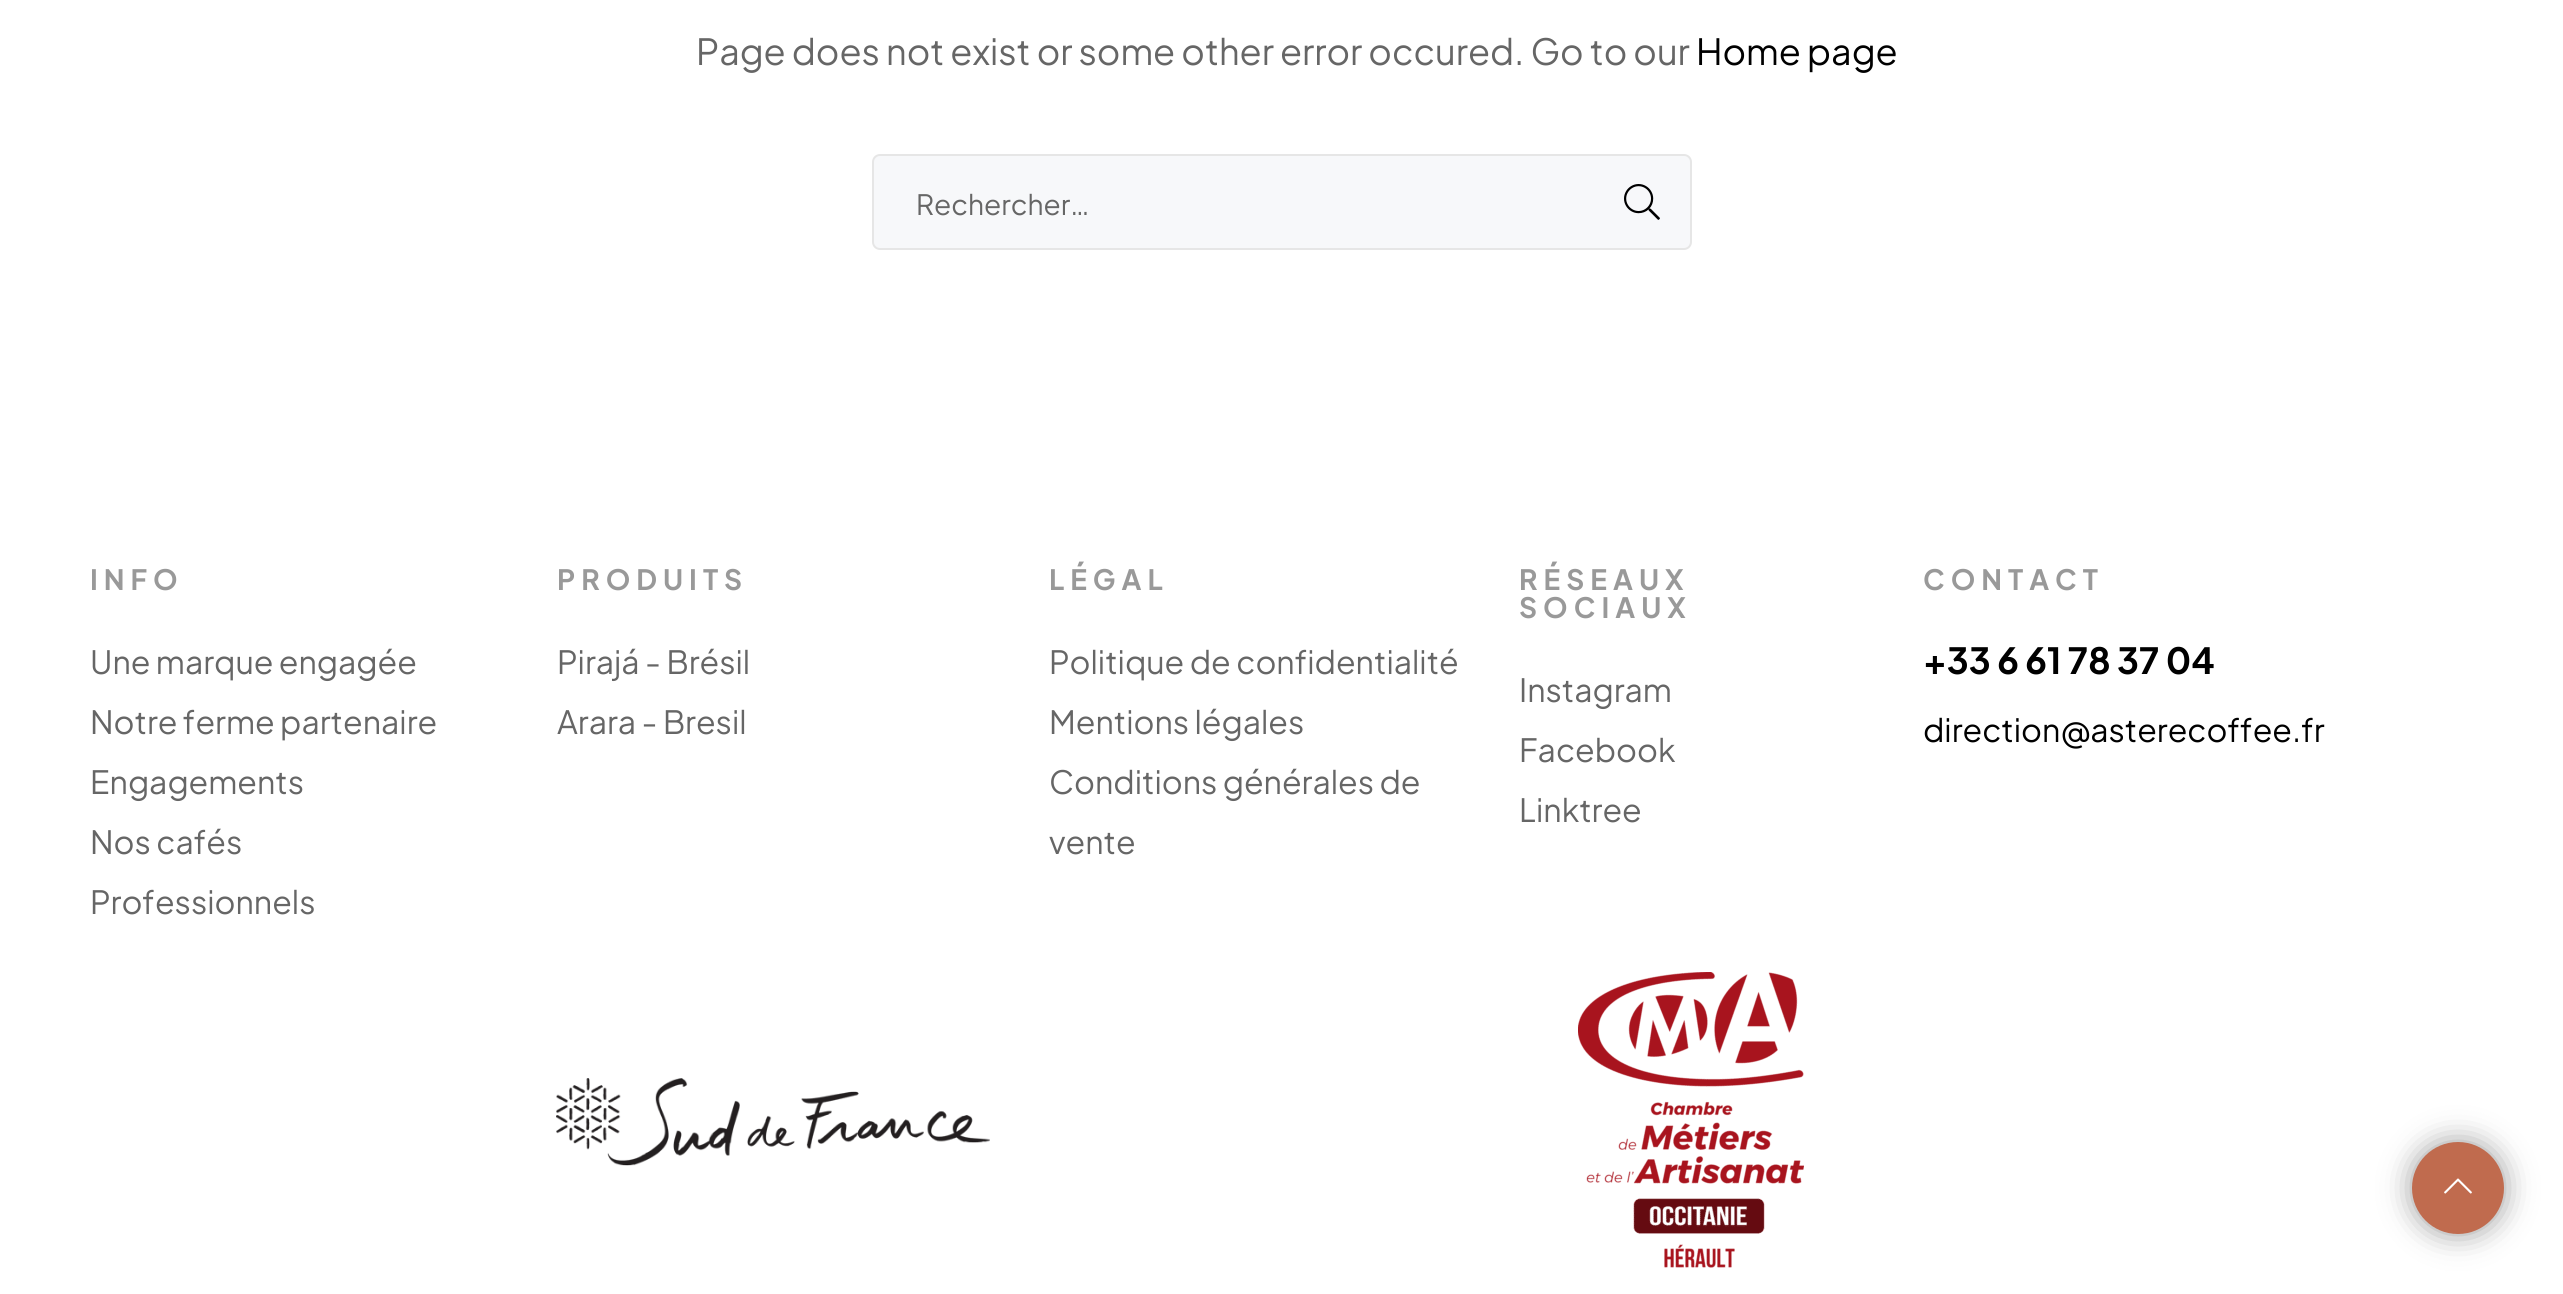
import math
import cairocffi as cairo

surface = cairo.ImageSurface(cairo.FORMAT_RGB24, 2563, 1294)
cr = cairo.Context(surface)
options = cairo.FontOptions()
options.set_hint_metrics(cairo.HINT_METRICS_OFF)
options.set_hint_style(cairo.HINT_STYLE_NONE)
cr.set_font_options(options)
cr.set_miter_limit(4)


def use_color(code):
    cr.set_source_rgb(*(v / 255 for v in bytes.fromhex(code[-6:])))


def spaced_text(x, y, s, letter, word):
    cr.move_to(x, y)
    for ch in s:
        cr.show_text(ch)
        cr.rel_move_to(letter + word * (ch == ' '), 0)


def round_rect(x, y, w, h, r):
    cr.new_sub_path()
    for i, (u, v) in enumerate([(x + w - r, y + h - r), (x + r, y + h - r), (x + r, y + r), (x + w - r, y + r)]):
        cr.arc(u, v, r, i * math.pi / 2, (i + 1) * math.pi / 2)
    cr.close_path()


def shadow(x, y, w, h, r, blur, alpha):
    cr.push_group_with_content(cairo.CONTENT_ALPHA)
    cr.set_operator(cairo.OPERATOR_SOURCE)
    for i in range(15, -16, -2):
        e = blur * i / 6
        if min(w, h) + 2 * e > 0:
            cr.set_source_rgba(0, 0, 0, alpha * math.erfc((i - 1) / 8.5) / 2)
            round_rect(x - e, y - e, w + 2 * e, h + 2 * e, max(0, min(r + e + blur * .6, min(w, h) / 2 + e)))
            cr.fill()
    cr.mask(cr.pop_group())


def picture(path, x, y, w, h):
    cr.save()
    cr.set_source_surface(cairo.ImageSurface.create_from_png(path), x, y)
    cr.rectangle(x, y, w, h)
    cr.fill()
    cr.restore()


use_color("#ffffff")
cr.paint()
cr.select_font_face("Plus Jakarta Sans")
cr.set_font_size(36)
use_color("#666666")
cr.move_to(696, 65)
cr.show_text("Page does not exist or some other error occured. Go to our")
use_color("#000000")
cr.move_to(1696, 65)
cr.show_text("Home page")
use_color("#f7f8fa")
round_rect(873, 155, 818, 94, 7)
cr.fill_preserve()
use_color("#e6e6e6")
cr.stroke()
cr.set_font_size(28)
use_color("#666666")
cr.move_to(916, 215)
cr.show_text("Rechercher…")
picture("img1.png", 1624, 184, 36, 36)
cr.select_font_face("Plus Jakarta Sans", cairo.FONT_SLANT_NORMAL, cairo.FONT_WEIGHT_BOLD)
use_color("#999999")
spaced_text(90, 590, "INFO", 6, 0)
cr.select_font_face("Plus Jakarta Sans")
cr.set_font_size(32)
use_color("#666666")
cr.move_to(90, 674)
cr.show_text("Une marque engagée")
cr.move_to(90, 734)
cr.show_text("Notre ferme partenaire")
cr.move_to(90, 794)
cr.show_text("Engagements")
cr.move_to(90, 854)
cr.show_text("Nos cafés")
cr.move_to(90, 914)
cr.show_text("Professionnels")
cr.select_font_face("Plus Jakarta Sans", cairo.FONT_SLANT_NORMAL, cairo.FONT_WEIGHT_BOLD)
cr.set_font_size(28)
use_color("#999999")
spaced_text(557, 590, "PRODUITS", 6, 0)
cr.select_font_face("Plus Jakarta Sans")
cr.set_font_size(32)
use_color("#666666")
cr.move_to(557, 674)
cr.show_text("Pirajá - Brésil")
cr.move_to(557, 734)
cr.show_text("Arara - Bresil")
cr.select_font_face("Plus Jakarta Sans", cairo.FONT_SLANT_NORMAL, cairo.FONT_WEIGHT_BOLD)
cr.set_font_size(28)
use_color("#999999")
spaced_text(1049, 590, "LÉGAL", 6, 0)
cr.select_font_face("Plus Jakarta Sans")
cr.set_font_size(32)
use_color("#666666")
cr.move_to(1049, 674)
cr.show_text("Politique de confidentialité")
cr.move_to(1049, 734)
cr.show_text("Mentions légales")
cr.move_to(1049, 794)
cr.show_text("Conditions générales de")
cr.move_to(1049, 854)
cr.show_text("vente")
cr.select_font_face("Plus Jakarta Sans", cairo.FONT_SLANT_NORMAL, cairo.FONT_WEIGHT_BOLD)
cr.set_font_size(28)
use_color("#999999")
spaced_text(1519, 590, "RÉSEAUX", 6, 0)
spaced_text(1519, 618, "SOCIAUX", 6, 0)
cr.select_font_face("Plus Jakarta Sans")
cr.set_font_size(32)
use_color("#666666")
cr.move_to(1519, 702)
cr.show_text("Instagram")
cr.move_to(1519, 762)
cr.show_text("Facebook")
cr.move_to(1519, 822)
cr.show_text("Linktree")
cr.select_font_face("Plus Jakarta Sans", cairo.FONT_SLANT_NORMAL, cairo.FONT_WEIGHT_BOLD)
cr.set_font_size(28)
use_color("#999999")
spaced_text(1923, 590, "CONTACT", 6, 0)
cr.set_font_size(36)
use_color("#000000")
cr.move_to(1923, 674)
cr.show_text("+33 6 61 78 37 04")
cr.select_font_face("Plus Jakarta Sans")
cr.set_font_size(32)
cr.move_to(1923, 742)
cr.show_text("direction@asterecoffee.fr")
picture("img2.png", 556, 1078, 434, 88)
picture("img3.png", 1578, 972, 226, 296)
use_color("#000000")
shadow(2412, 1142, 92, 92, 46, 15, 0.4)
use_color("#c06b4e")
cr.arc(2458, 1188, 46, 0, 2 * math.pi)
cr.fill()
picture("img4.png", 2444, 1178, 28, 16)
surface.write_to_png("result.png")
